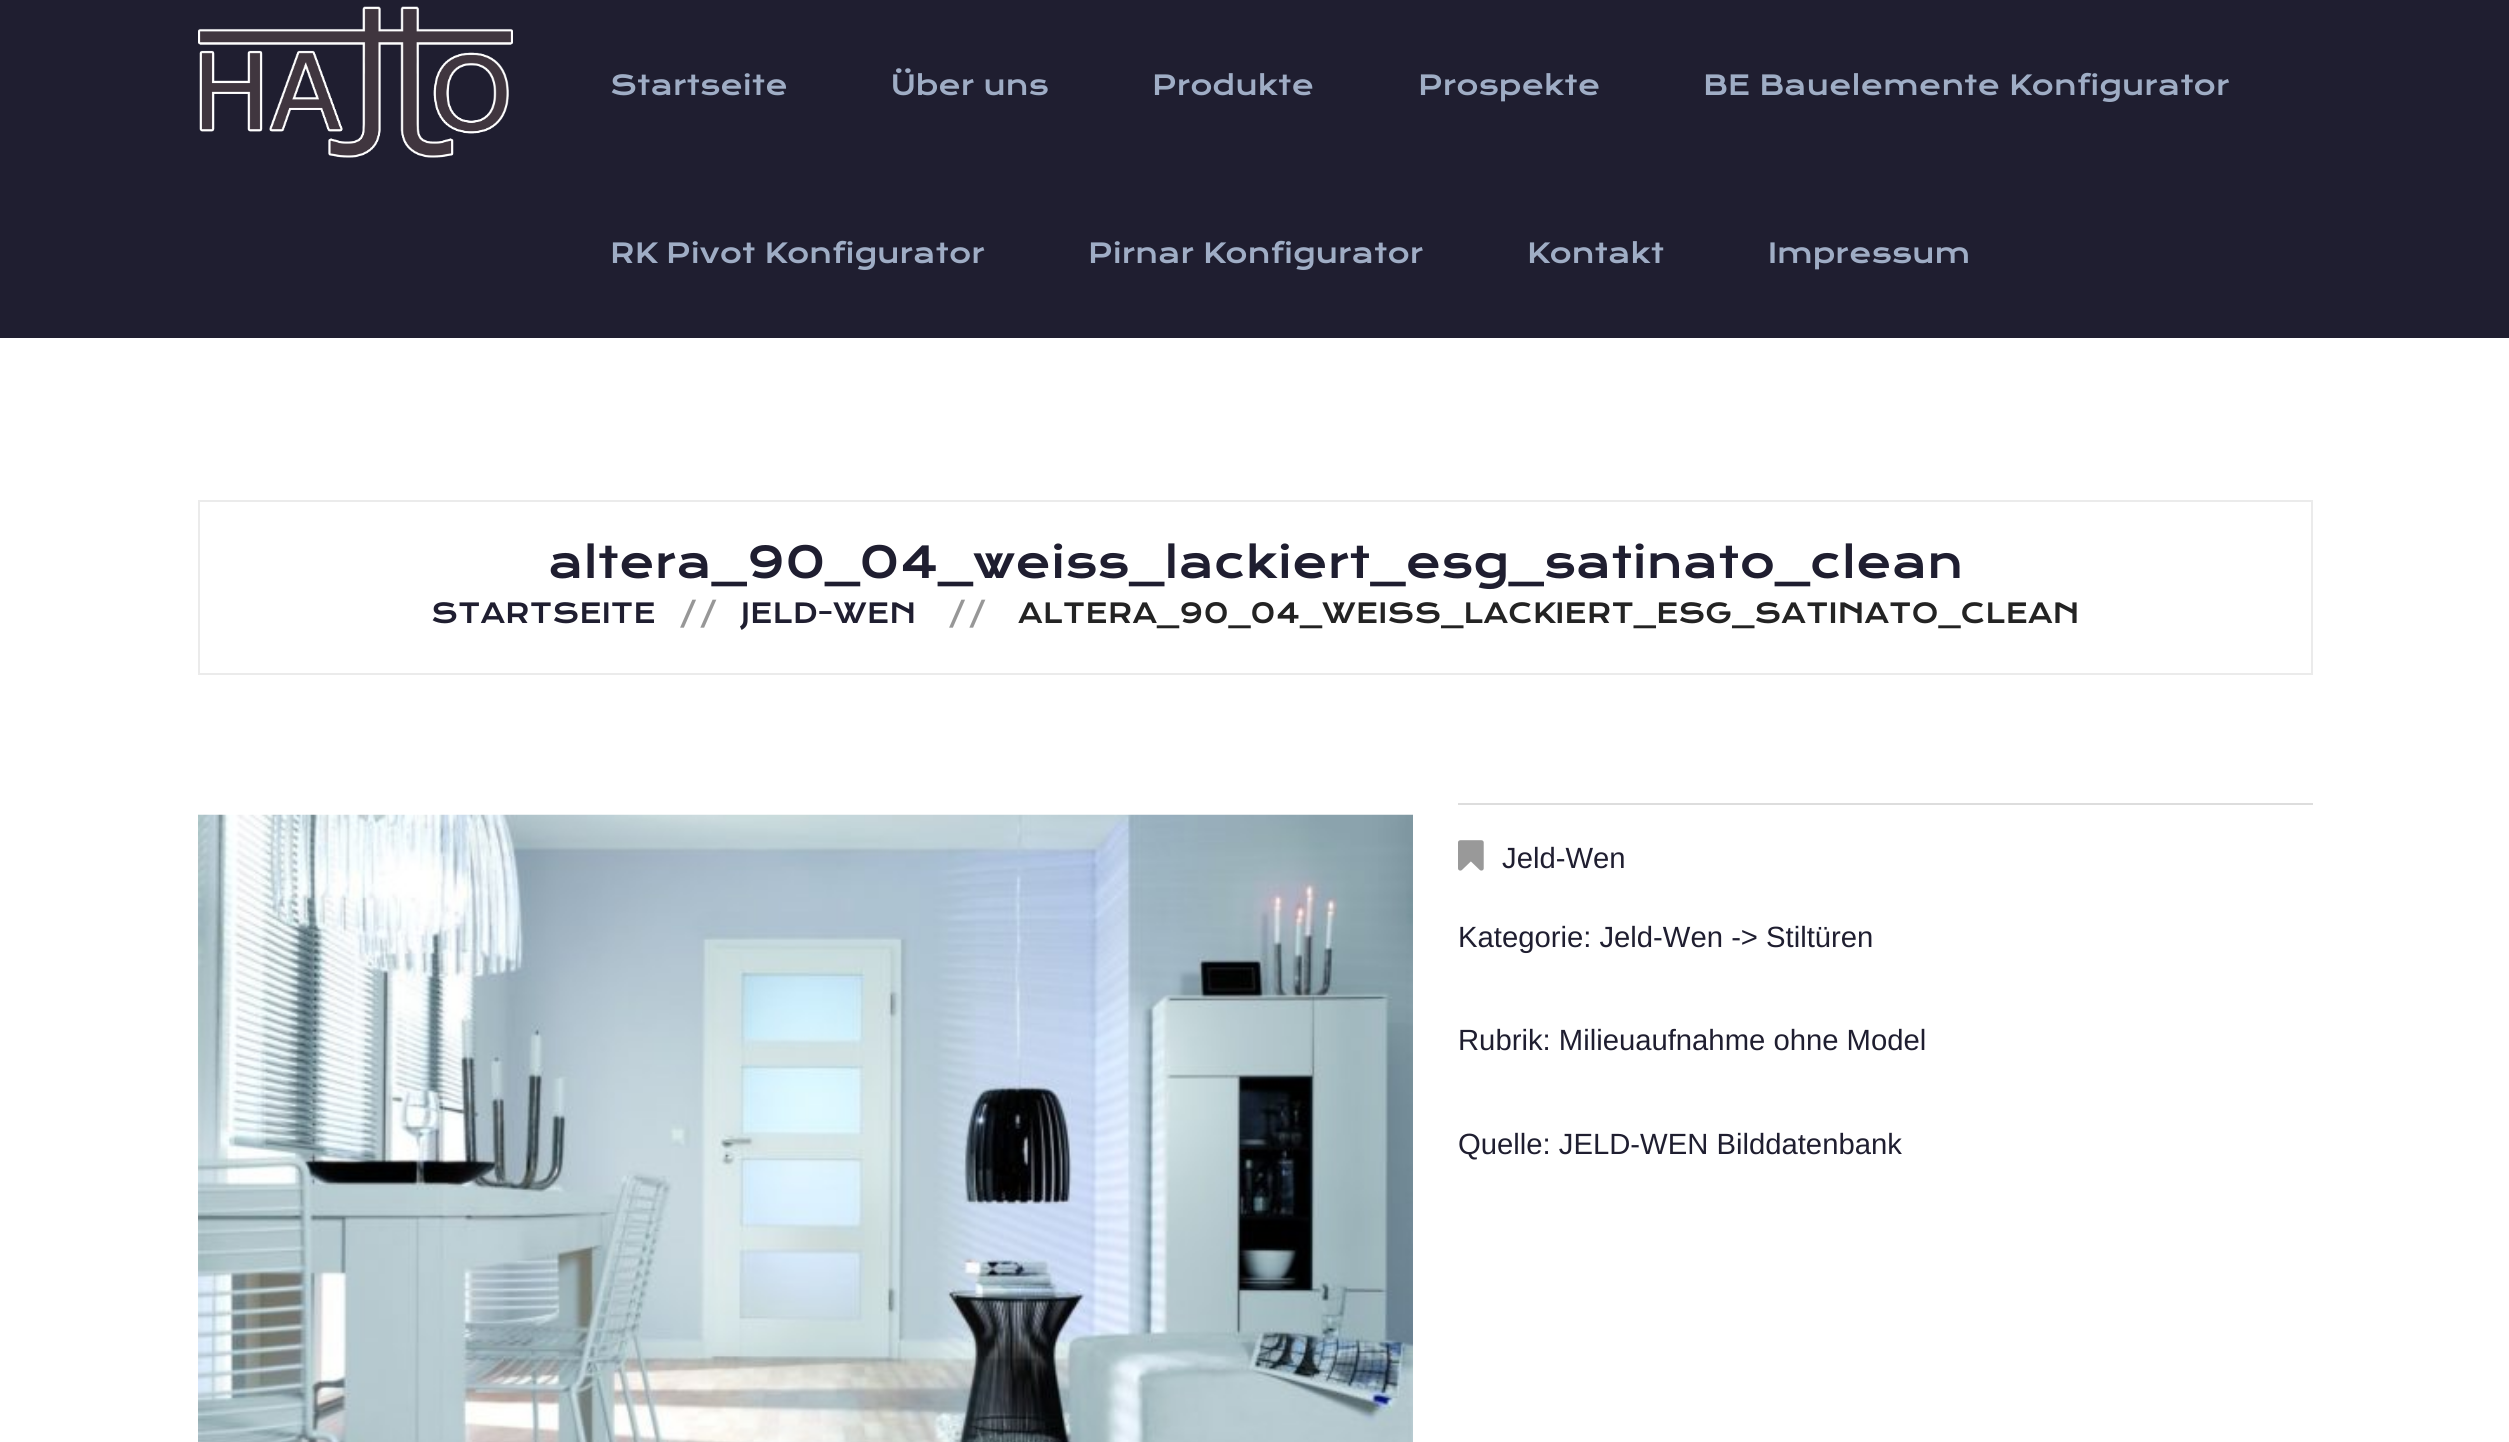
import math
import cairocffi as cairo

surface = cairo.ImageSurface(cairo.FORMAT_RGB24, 2509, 1442)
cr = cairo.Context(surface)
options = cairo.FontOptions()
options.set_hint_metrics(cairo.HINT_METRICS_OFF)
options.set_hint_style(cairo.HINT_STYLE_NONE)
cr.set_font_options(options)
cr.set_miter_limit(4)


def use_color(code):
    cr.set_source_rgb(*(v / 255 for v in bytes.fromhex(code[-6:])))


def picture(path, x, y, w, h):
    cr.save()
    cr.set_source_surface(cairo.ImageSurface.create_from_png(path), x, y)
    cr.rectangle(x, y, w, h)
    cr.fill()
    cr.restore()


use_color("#ffffff")
cr.paint()
use_color("#1f1e30")
cr.rectangle(0, 0, 2509, 338)
cr.fill()
picture("img1.png", 198, 6, 315, 152)
cr.select_font_face("Krona One")
cr.set_font_size(27)
use_color("#9fadc5")
cr.move_to(610, 95)
cr.show_text("Startseite")
cr.move_to(891, 95)
cr.show_text("Über uns")
cr.move_to(1152, 95)
cr.show_text("Produkte")
cr.move_to(1418, 95)
cr.show_text("Prospekte")
cr.move_to(1703, 95)
cr.show_text("BE Bauelemente Konfigurator")
cr.move_to(610, 263)
cr.show_text("RK Pivot Konfigurator")
cr.move_to(1088, 263)
cr.show_text("Pirnar Konfigurator")
cr.move_to(1527, 263)
cr.show_text("Kontakt")
cr.move_to(1768, 263)
cr.show_text("Impressum")
cr.rectangle(199, 501, 2113, 173)
use_color("#ebebeb")
cr.stroke()
cr.set_font_size(42.75)
use_color("#1f1e30")
cr.move_to(548, 578)
cr.show_text("altera_90_04_weiss_lackiert_esg_satinato_clean")
cr.set_font_size(27)
cr.move_to(431, 623)
cr.show_text("STARTSEITE")
use_color("#979797")
cr.move_to(678, 623)
cr.show_text("//")
use_color("#1f1e30")
cr.move_to(741, 623)
cr.show_text("JELD-WEN")
use_color("#979797")
cr.move_to(947, 623)
cr.show_text("//")
use_color("#232323")
cr.move_to(1018, 623)
cr.show_text("ALTERA_90_04_WEISS_LACKIERT_ESG_SATINATO_CLEAN")
picture("img2.png", 198, 814, 1215, 628)
use_color("#dddddd")
cr.rectangle(1458, 803, 855, 2)
cr.fill()
picture("img3.png", 1458, 840, 26, 31)
cr.select_font_face("Liberation Sans")
cr.set_font_size(29.25)
use_color("#1f1e30")
cr.move_to(1502, 868)
cr.show_text("Jeld-Wen")
cr.move_to(1458, 947)
cr.show_text("Kategorie: Jeld-Wen -> Stiltüren")
cr.move_to(1458, 1050)
cr.show_text("Rubrik: Milieuaufnahme ohne Model")
cr.move_to(1458, 1154)
cr.show_text("Quelle: JELD-WEN Bilddatenbank")
surface.write_to_png("result.png")
